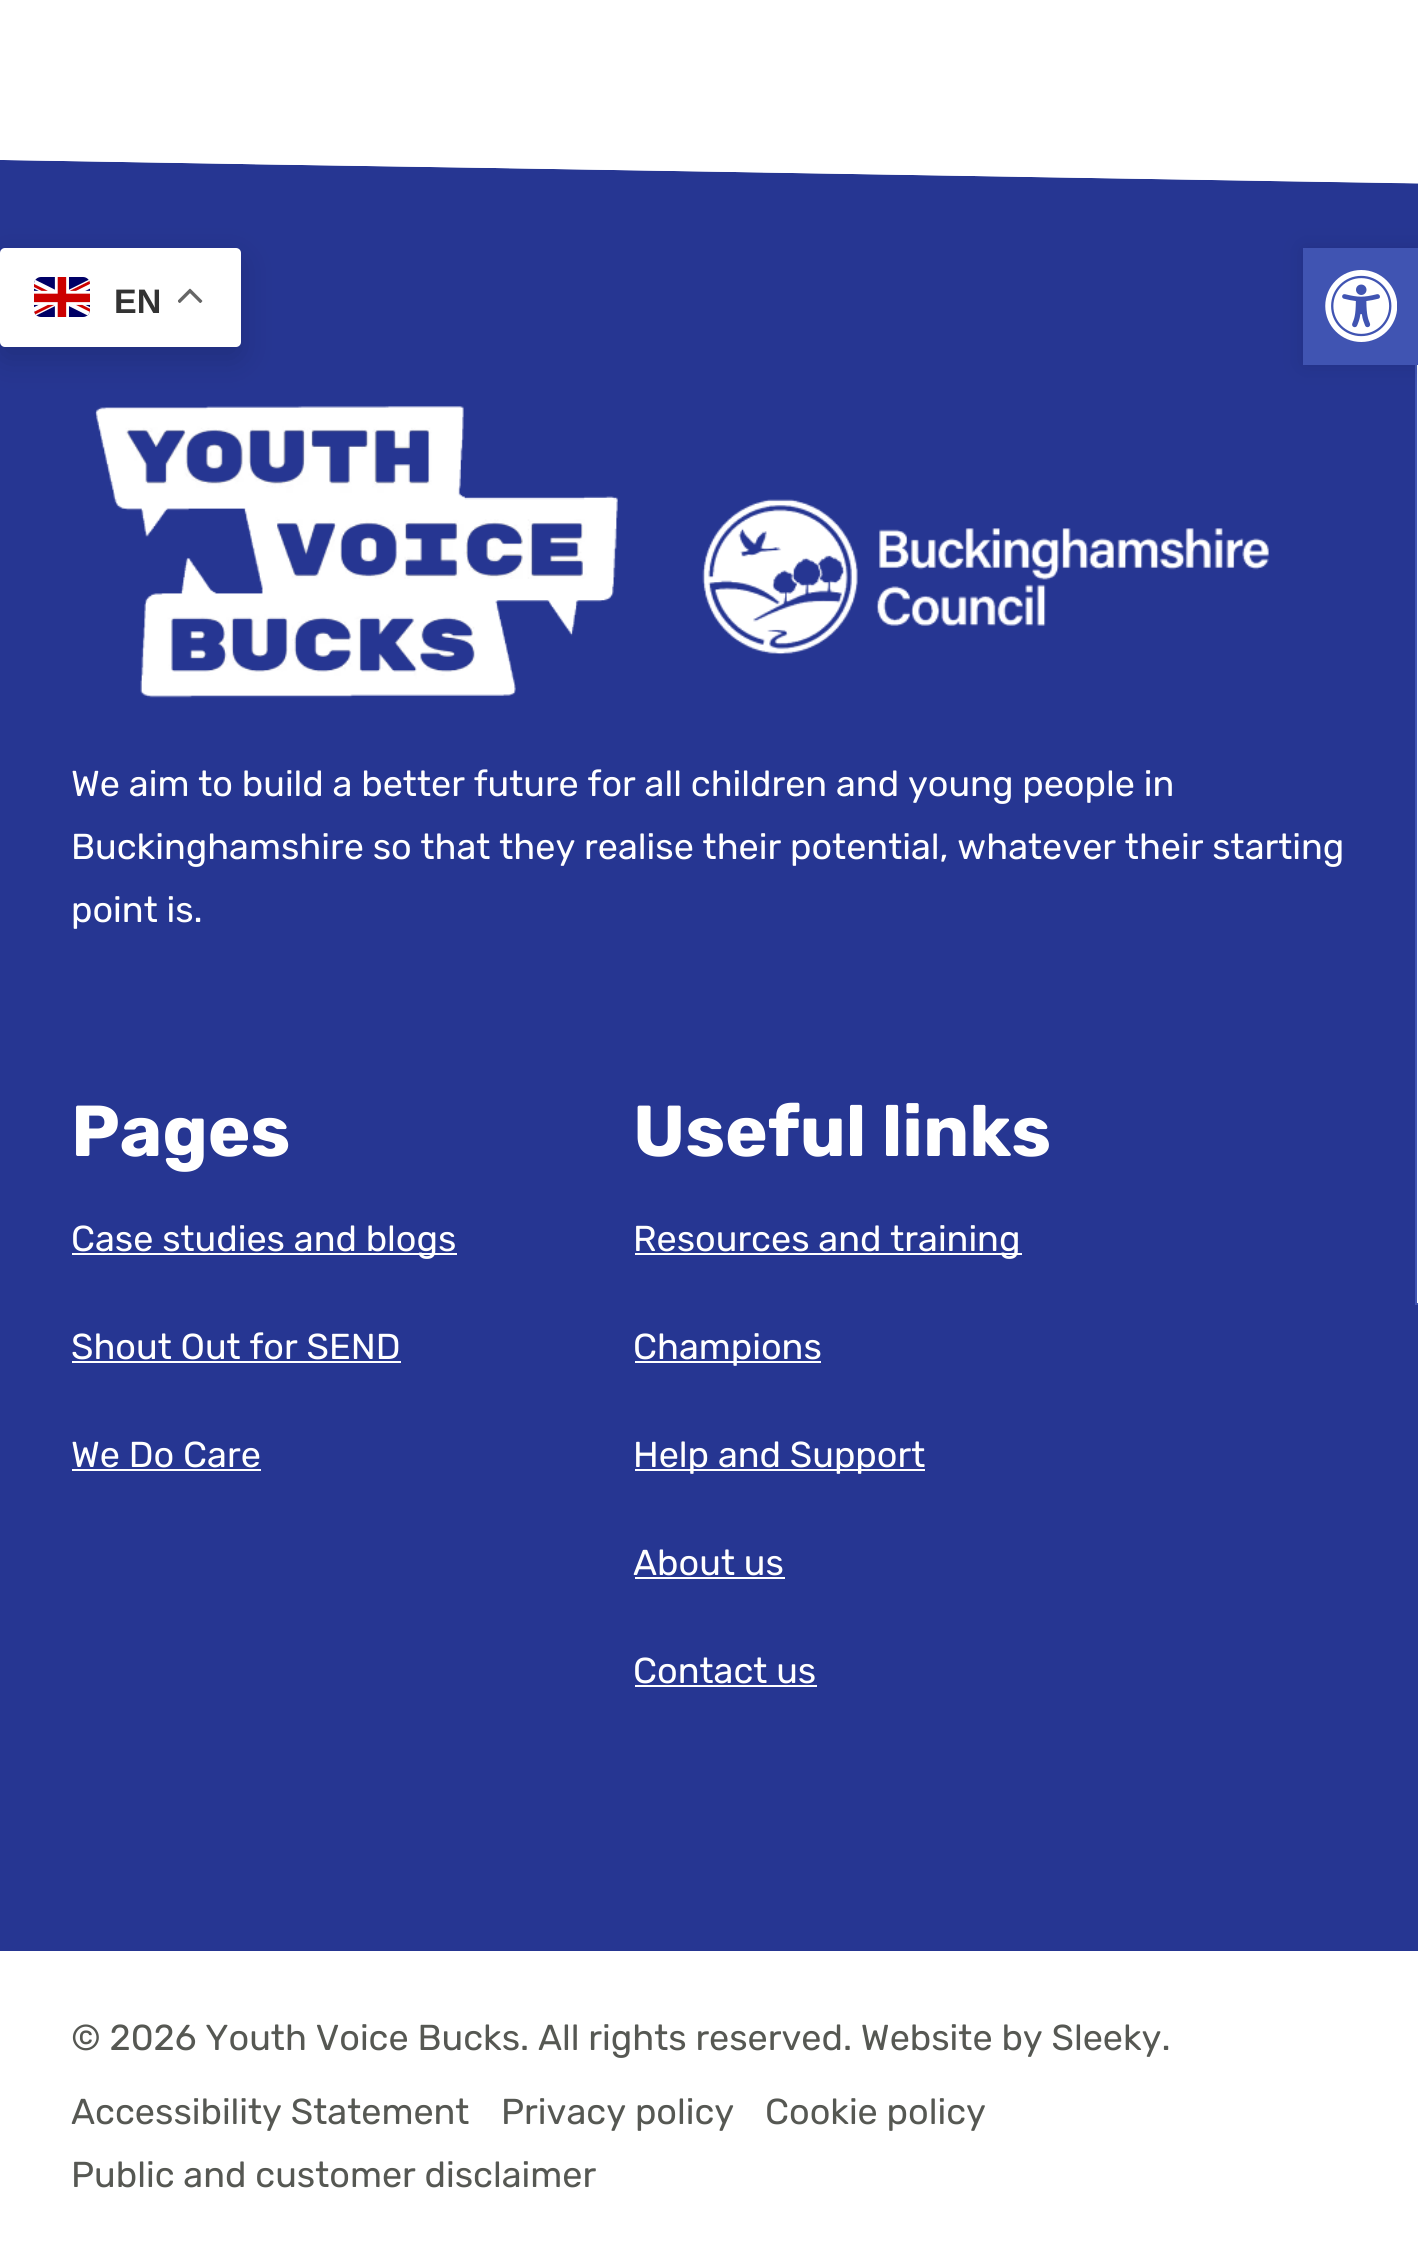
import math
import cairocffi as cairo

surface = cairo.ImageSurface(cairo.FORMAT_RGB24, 1418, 2251)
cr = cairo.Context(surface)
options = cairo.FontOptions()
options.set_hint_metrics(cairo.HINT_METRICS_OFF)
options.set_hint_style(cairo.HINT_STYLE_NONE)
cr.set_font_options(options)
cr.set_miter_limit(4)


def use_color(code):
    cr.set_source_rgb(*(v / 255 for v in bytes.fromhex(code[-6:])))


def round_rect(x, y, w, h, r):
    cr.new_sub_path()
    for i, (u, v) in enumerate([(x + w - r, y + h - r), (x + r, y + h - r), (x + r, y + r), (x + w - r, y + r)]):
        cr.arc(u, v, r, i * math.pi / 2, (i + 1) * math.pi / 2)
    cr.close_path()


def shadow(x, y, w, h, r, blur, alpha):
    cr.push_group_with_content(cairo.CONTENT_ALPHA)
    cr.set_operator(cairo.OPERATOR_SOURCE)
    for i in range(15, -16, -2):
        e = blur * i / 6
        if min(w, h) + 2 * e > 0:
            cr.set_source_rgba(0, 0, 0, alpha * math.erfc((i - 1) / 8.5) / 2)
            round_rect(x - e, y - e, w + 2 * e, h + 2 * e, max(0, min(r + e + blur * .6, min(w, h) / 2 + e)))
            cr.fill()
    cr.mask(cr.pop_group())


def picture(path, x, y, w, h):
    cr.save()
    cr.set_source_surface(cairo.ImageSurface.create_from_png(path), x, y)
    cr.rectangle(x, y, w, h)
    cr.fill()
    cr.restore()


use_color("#ffffff")
cr.paint()
picture("img4.png", 0, 160, 1418, 1791)
picture("img5.png", 95, 406, 523, 292)
use_color("#000000")
shadow(0, 259, 241, 99, 5, 17, 0.15)
use_color("#ffffff")
round_rect(0, 248, 241, 99, 5)
cr.fill()
picture("img1.png", 34, 277, 56, 40)
cr.select_font_face("Liberation Sans", cairo.FONT_SLANT_NORMAL, cairo.FONT_WEIGHT_BOLD)
cr.set_font_size(34)
use_color("#333333")
cr.move_to(114, 313)
cr.show_text("EN")
picture("img2.png", 178, 288, 25, 15)
use_color("#ffffff")
cr.rectangle(1417, 365, 1, 940)
cr.fill()
cr.rectangle(1416, 249, 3, 1055)
use_color("#4054b2")
cr.stroke()
use_color("#000000")
shadow(1303, 248, 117, 117, 0, 11, 0.1)
use_color("#4054b2")
cr.rectangle(1303, 248, 115, 117)
cr.fill()
picture("img3.png", 1325, 270, 72, 72)
picture("img6.png", 702, 499, 567, 156)
cr.select_font_face("Rubik")
cr.set_font_size(36)
use_color("#ffffff")
cr.move_to(71, 796)
cr.show_text("We aim to build a better future for all children and young people in")
cr.move_to(71, 859)
cr.show_text("Buckinghamshire so that they realise their potential, whatever their starting")
cr.move_to(71, 922)
cr.show_text("point is.")
cr.select_font_face("Rubik", cairo.FONT_SLANT_NORMAL, cairo.FONT_WEIGHT_BOLD)
cr.set_font_size(72)
cr.move_to(71, 1156)
cr.show_text("Pages")
cr.rectangle(72, 1253, 385, 2)
cr.fill()
cr.select_font_face("Rubik")
cr.set_font_size(36)
cr.move_to(71, 1251)
cr.show_text("Case studies and blogs")
cr.move_to(71, 1359)
cr.show_text("Shout Out for SEND")
cr.rectangle(72, 1361, 329, 2)
cr.fill()
cr.move_to(71, 1467)
cr.show_text("We Do Care")
cr.rectangle(72, 1469, 189, 2)
cr.fill()
cr.select_font_face("Rubik", cairo.FONT_SLANT_NORMAL, cairo.FONT_WEIGHT_BOLD)
cr.set_font_size(72)
cr.move_to(633, 1156)
cr.show_text("Useful links")
cr.rectangle(635, 1253, 387, 2)
cr.fill()
cr.select_font_face("Rubik")
cr.set_font_size(36)
cr.move_to(633, 1251)
cr.show_text("Resources and training")
cr.rectangle(635, 1361, 186, 2)
cr.fill()
cr.move_to(633, 1359)
cr.show_text("Champions")
cr.rectangle(635, 1469, 290, 2)
cr.fill()
cr.move_to(633, 1467)
cr.show_text("Help and Support")
cr.move_to(633, 1575)
cr.show_text("About us")
cr.rectangle(635, 1577, 150, 2)
cr.fill()
cr.move_to(633, 1683)
cr.show_text("Contact us")
cr.rectangle(635, 1685, 182, 2)
cr.fill()
use_color("#565853")
cr.move_to(71, 2050)
cr.show_text("© 2026 Youth Voice Bucks. All rights reserved. Website by Sleeky.")
cr.move_to(71, 2124)
cr.show_text("Accessibility Statement")
cr.move_to(501, 2124)
cr.show_text("Privacy policy")
cr.move_to(765, 2124)
cr.show_text("Cookie policy")
cr.move_to(71, 2187)
cr.show_text("Public and customer disclaimer")
surface.write_to_png("result.png")
